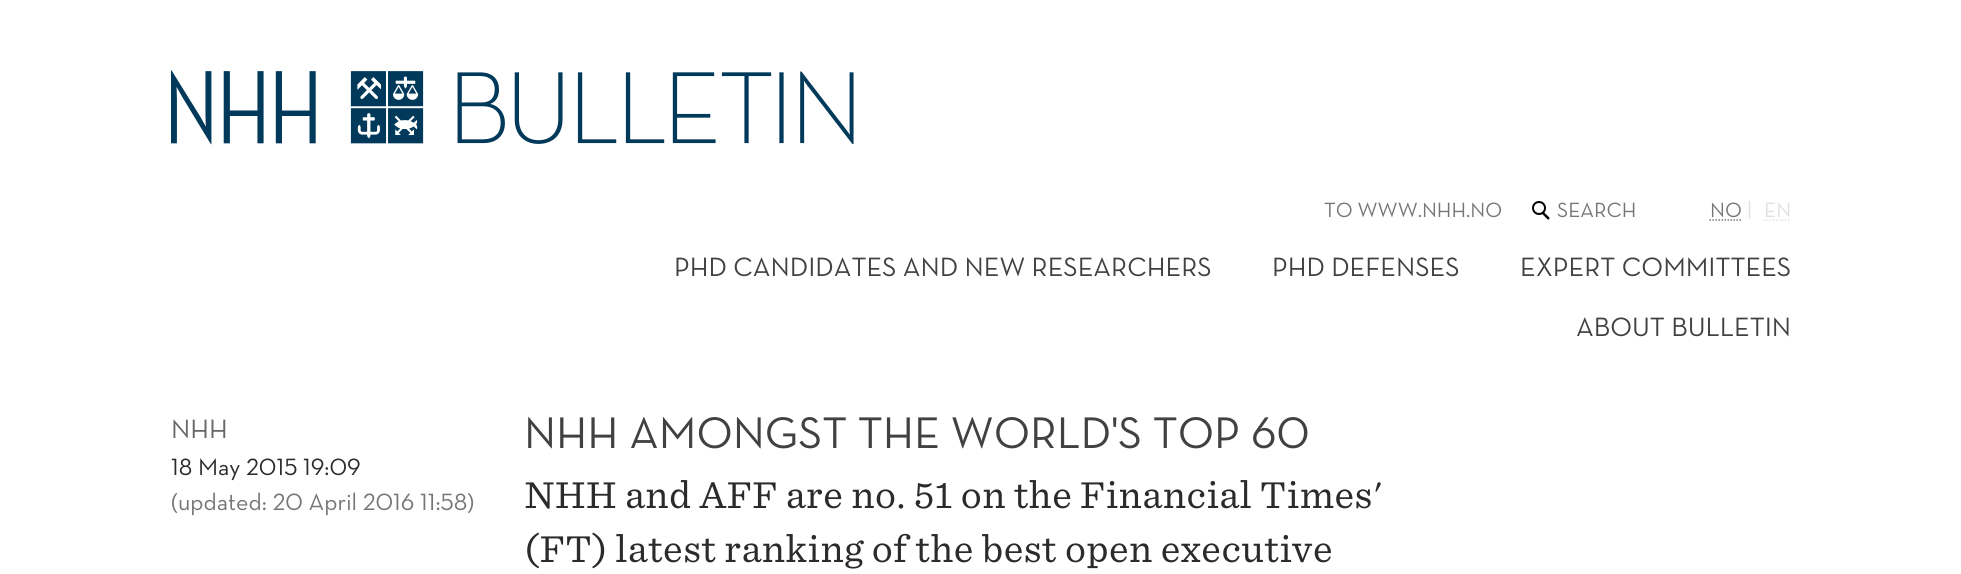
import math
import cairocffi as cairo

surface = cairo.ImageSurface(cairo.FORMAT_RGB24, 1961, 574)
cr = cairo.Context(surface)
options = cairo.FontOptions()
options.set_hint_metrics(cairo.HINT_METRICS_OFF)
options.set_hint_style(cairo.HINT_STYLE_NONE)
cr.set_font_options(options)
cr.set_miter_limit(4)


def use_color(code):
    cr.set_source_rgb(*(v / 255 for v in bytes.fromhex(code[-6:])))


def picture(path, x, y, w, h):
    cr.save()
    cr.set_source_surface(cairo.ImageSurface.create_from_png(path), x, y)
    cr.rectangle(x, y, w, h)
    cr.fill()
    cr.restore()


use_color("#ffffff")
cr.paint()
picture("img1.png", 171, 70, 683, 75)
cr.select_font_face("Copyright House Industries")
cr.set_font_size(21)
use_color("#767676")
cr.move_to(1324, 217)
cr.show_text("TO WWW.NHH.NO")
picture("img2.png", 1532, 201, 18, 19)
cr.move_to(1557, 217)
cr.show_text("SEARCH")
cr.move_to(1710, 217)
cr.show_text("NO")
cr.new_path()
cr.move_to(1709.5, 220)
cr.line_to(1741.5, 220)
cr.set_line_width(1.5)
cr.set_dash([1.5, 1.5])
cr.stroke()
use_color("#dfe0e1")
cr.move_to(1747, 216)
cr.show_text("|")
cr.move_to(1764, 217)
cr.show_text("EN")
cr.new_path()
cr.move_to(1764, 220)
cr.line_to(1791, 220)
cr.stroke()
cr.set_font_size(27)
use_color("#414042")
cr.move_to(674, 276)
cr.show_text("PHD CANDIDATES AND NEW RESEARCHERS")
cr.move_to(1272, 276)
cr.show_text("PHD DEFENSES")
cr.move_to(1520, 276)
cr.show_text("EXPERT COMMITTEES")
cr.move_to(1576, 336)
cr.show_text("ABOUT BULLETIN")
use_color("#676767")
cr.move_to(171, 438)
cr.show_text("NHH")
cr.set_font_size(24)
use_color("#2b2b2b")
cr.move_to(171, 475)
cr.show_text("18 May 2015 19:09")
use_color("#767676")
cr.move_to(171, 510)
cr.show_text("(updated: 20 April 2016 11:58)")
cr.set_font_size(45)
use_color("#414042")
cr.move_to(524, 448)
cr.show_text("NHH AMONGST THE WORLD'S TOP 60")
cr.select_font_face("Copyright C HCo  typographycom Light")
cr.set_font_size(36)
use_color("#2b2b2b")
cr.move_to(524, 508)
cr.show_text("NHH and AFF are no. 51 on the Financial Times'")
cr.move_to(524, 562)
cr.show_text("(FT) latest ranking of the best open executive")
surface.write_to_png("result.png")
